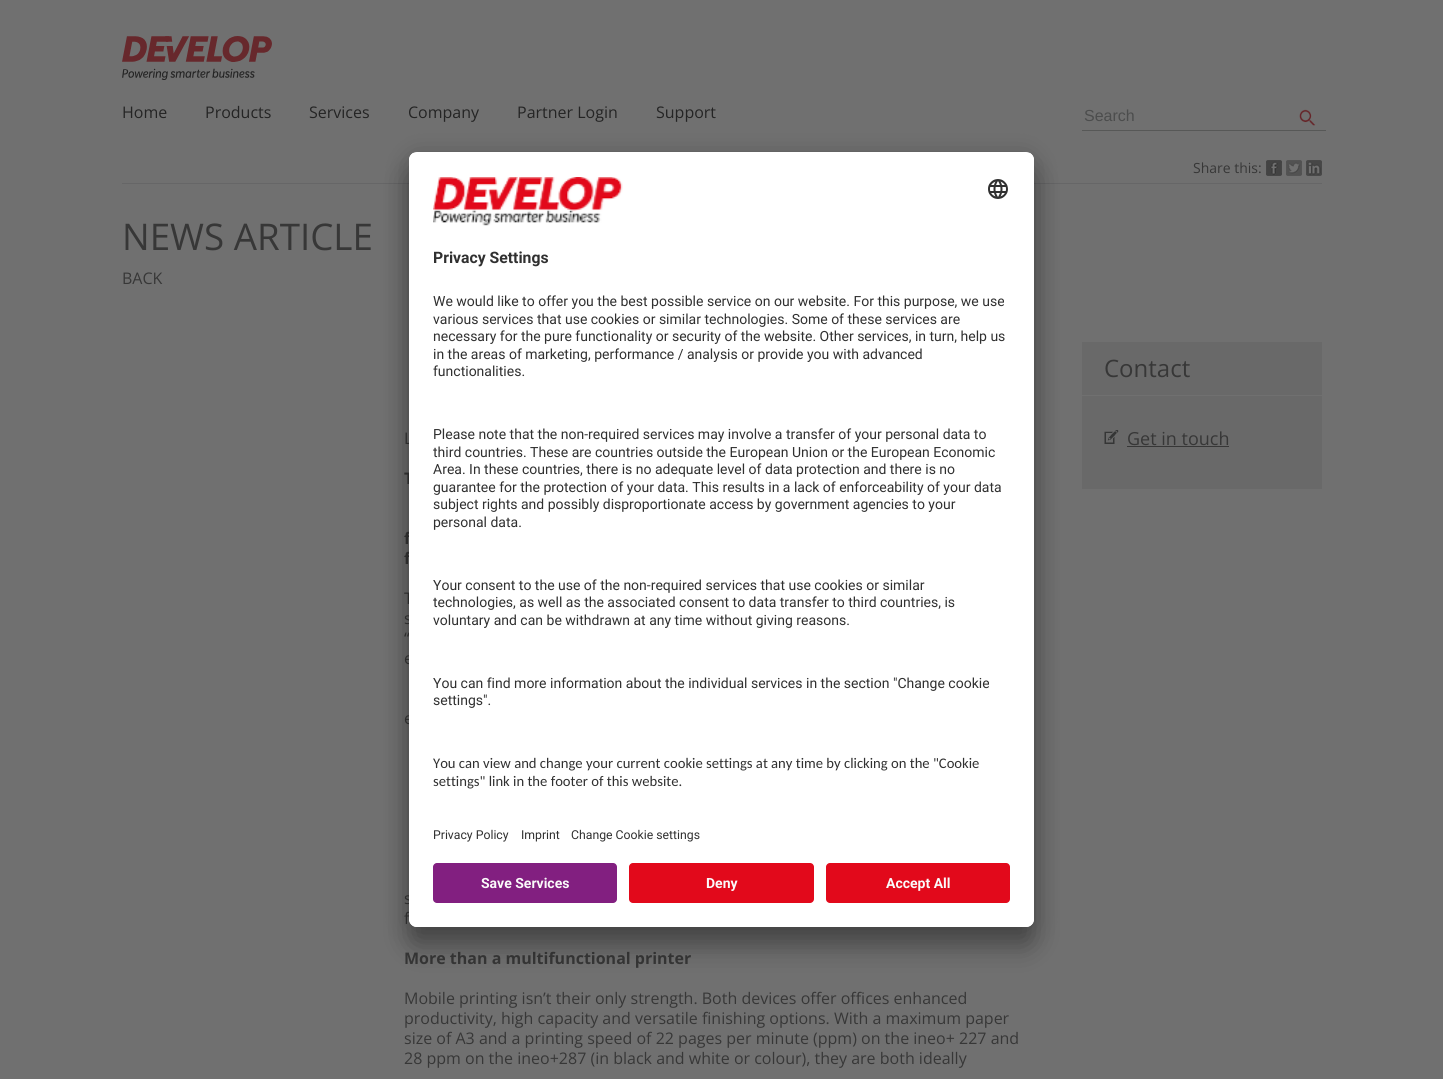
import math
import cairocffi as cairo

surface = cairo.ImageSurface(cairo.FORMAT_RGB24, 1443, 1079)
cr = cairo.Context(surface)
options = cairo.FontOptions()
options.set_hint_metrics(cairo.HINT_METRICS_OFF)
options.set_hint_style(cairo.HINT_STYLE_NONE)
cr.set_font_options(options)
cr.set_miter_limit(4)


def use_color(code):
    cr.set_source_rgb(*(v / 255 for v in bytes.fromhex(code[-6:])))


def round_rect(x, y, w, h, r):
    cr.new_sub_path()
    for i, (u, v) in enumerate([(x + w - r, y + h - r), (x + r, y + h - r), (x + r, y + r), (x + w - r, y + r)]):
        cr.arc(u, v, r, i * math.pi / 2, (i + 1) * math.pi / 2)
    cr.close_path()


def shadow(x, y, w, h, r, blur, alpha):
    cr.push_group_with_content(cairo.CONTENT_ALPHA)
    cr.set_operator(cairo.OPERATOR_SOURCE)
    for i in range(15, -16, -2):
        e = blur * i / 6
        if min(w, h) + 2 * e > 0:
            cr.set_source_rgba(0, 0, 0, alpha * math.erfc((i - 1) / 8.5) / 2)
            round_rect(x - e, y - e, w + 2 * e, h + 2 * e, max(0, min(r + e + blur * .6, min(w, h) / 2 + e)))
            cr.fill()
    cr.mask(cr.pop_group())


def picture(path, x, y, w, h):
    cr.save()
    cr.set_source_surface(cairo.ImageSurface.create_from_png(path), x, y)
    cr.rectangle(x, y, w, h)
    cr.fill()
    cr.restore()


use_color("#707070")
cr.paint()
picture("img1.png", 122, 36, 150, 44)
cr.select_font_face("Open Sans")
cr.set_font_size(16)
use_color("#242424")
cr.move_to(122, 118)
cr.show_text("Home")
cr.move_to(205, 118)
cr.show_text("Products")
cr.move_to(309, 118)
cr.show_text("Services")
cr.move_to(408, 118)
cr.show_text("Company")
cr.move_to(517, 118)
cr.show_text("Partner Login")
cr.move_to(656, 118)
cr.show_text("Support")
use_color("#575857")
cr.rectangle(1082, 130, 244, 1)
cr.fill()
cr.select_font_face("Liberation Sans")
use_color("#4c4d4d")
cr.move_to(1084, 121)
cr.show_text("Search")
picture("img2.png", 1299, 109, 17, 17)
use_color("#666667")
cr.rectangle(122, 183, 1200, 1)
cr.fill()
cr.select_font_face("Open Sans")
cr.set_font_size(14)
use_color("#373737")
cr.move_to(1193, 173)
cr.show_text("Share this:")
picture("img3.png", 1266, 160, 16, 16)
picture("img4.png", 1286, 160, 16, 16)
picture("img5.png", 1306, 160, 16, 16)
cr.set_font_size(36.75)
cr.move_to(122, 250)
cr.show_text("NEWS ARTICLE")
cr.set_font_size(16)
cr.move_to(122, 284)
cr.show_text("BACK")
use_color("#696969")
cr.rectangle(1082, 342, 240, 147)
cr.fill()
use_color("#707070")
cr.rectangle(1082, 395, 240, 1)
cr.fill()
cr.set_font_size(24)
use_color("#373737")
cr.move_to(1104, 377)
cr.show_text("Contact")
picture("img6.png", 1104, 430, 15, 14)
cr.set_font_size(18)
cr.move_to(1127, 445)
cr.show_text("Get in touch")
cr.rectangle(1127, 446, 102, 1)
cr.fill()
cr.set_font_size(16)
cr.move_to(404, 444)
cr.show_text("L")
cr.select_font_face("Open Sans", cairo.FONT_SLANT_NORMAL, cairo.FONT_WEIGHT_BOLD)
cr.move_to(404, 484)
cr.show_text("T")
cr.move_to(404, 544)
cr.show_text("f")
cr.move_to(404, 564)
cr.show_text("f")
cr.select_font_face("Open Sans")
cr.move_to(404, 604)
cr.show_text("T")
cr.move_to(404, 624)
cr.show_text("s")
cr.move_to(404, 644)
cr.show_text("“")
cr.move_to(404, 664)
cr.show_text("e")
cr.move_to(404, 724)
cr.show_text("e")
cr.move_to(404, 904)
cr.show_text("s")
cr.move_to(404, 924)
cr.show_text("f")
cr.select_font_face("Open Sans", cairo.FONT_SLANT_NORMAL, cairo.FONT_WEIGHT_BOLD)
cr.move_to(404, 964)
cr.show_text("More than a multifunctional printer")
cr.select_font_face("Open Sans")
cr.move_to(404, 1004)
cr.show_text("Mobile printing isn’t their only strength. Both devices offer offices enhanced")
cr.move_to(404, 1024)
cr.show_text("productivity, high capacity and versatile finishing options. With a maximum paper")
cr.move_to(404, 1044)
cr.show_text("size of A3 and a printing speed of 22 pages per minute (ppm) on the ineo+ 227 and")
cr.move_to(404, 1064)
cr.show_text("28 ppm on the ineo+287 (in black and white or colour), they are both ideally")
use_color("#000000")
shadow(409, 172, 625, 775, 8, 14, 0.3)
shadow(409, 157, 625, 775, 8, 13, 0.22)
use_color("#ffffff")
round_rect(409, 152, 625, 775, 8)
cr.fill()
cr.save()
round_rect(409, 152, 625, 775, 8)
cr.clip()
cr.new_path()
cr.move_to(417, 152)
cr.line_to(1026, 152)
cr.curve_to(1030.5, 152, 1034, 155.5, 1034, 160)
cr.line_to(1034, 855)
cr.line_to(409, 855)
cr.line_to(409, 160)
cr.curve_to(409, 155.5, 412.5, 152, 417, 152)
cr.close_path()
cr.clip()
cr.rectangle(409, 153, 625, 702)
cr.fill()
cr.restore()
picture("img7.png", 433, 177, 190, 49)
picture("img8.png", 988, 179, 20, 20)
cr.select_font_face("Roboto", cairo.FONT_SLANT_NORMAL, cairo.FONT_WEIGHT_BOLD)
cr.set_font_size(15.75)
use_color("#303030")
cr.move_to(433, 263)
cr.show_text("Privacy Settings")
cr.select_font_face("Roboto")
cr.set_font_size(14)
cr.move_to(433, 306)
cr.show_text("We would like to offer you the best possible service on our website. For this purpose, we use")
cr.move_to(433, 324)
cr.show_text("various services that use cookies or similar technologies. Some of these services are")
cr.move_to(433, 341)
cr.show_text("necessary for the pure functionality or security of the website. Other services, in turn, help us")
cr.move_to(433, 359)
cr.show_text("in the areas of marketing, performance / analysis or provide you with advanced")
cr.move_to(433, 376)
cr.show_text("functionalities.")
cr.move_to(433, 439)
cr.show_text("Please note that the non-required services may involve a transfer of your personal data to")
cr.move_to(433, 457)
cr.show_text("third countries. These are countries outside the European Union or the European Economic")
cr.move_to(433, 474)
cr.show_text("Area. In these countries, there is no adequate level of data protection and there is no")
cr.move_to(433, 492)
cr.show_text("guarantee for the protection of your data. This results in a lack of enforceability of your data")
cr.move_to(433, 509)
cr.show_text("subject rights and possibly disproportionate access by government agencies to your")
cr.move_to(433, 527)
cr.show_text("personal data.")
cr.move_to(433, 590)
cr.show_text("Your consent to the use of the non-required services that use cookies or similar")
cr.move_to(433, 607)
cr.show_text("technologies, as well as the associated consent to data transfer to third countries, is")
cr.move_to(433, 625)
cr.show_text("voluntary and can be withdrawn at any time without giving reasons.")
cr.move_to(433, 688)
cr.show_text("You can find more information about the individual services in the section \"Change cookie")
cr.move_to(433, 705)
cr.show_text("settings\".")
cr.select_font_face("Carlito")
cr.set_font_size(14.65)
cr.move_to(433, 768)
cr.show_text("You can view and change your current cookie settings at any time by clicking on the \"Cookie")
cr.move_to(433, 786)
cr.show_text("settings\" link in the footer of this website.")
cr.select_font_face("Roboto")
cr.set_font_size(12.25)
cr.move_to(433, 839)
cr.show_text("Privacy Policy")
cr.move_to(521, 839)
cr.show_text("Imprint")
cr.move_to(571, 839)
cr.show_text("Change Cookie settings")
use_color("#ffffff")
cr.new_path()
cr.move_to(409, 855)
cr.line_to(1034, 855)
cr.line_to(1034, 919)
cr.curve_to(1034, 923.5, 1030.5, 927, 1026, 927)
cr.line_to(417, 927)
cr.curve_to(412.5, 927, 409, 923.5, 409, 919)
cr.close_path()
cr.fill()
use_color("#821f80")
round_rect(433, 863, 184, 40, 4)
cr.fill()
cr.select_font_face("Roboto", cairo.FONT_SLANT_NORMAL, cairo.FONT_WEIGHT_BOLD)
cr.set_font_size(14)
use_color("#fafafa")
cr.move_to(481, 888)
cr.show_text("Save Services")
use_color("#e2091b")
round_rect(629, 863, 185, 40, 4)
cr.fill()
use_color("#fafafa")
cr.move_to(706, 888)
cr.show_text("Deny")
use_color("#e2091b")
round_rect(826, 863, 184, 40, 4)
cr.fill()
use_color("#fafafa")
cr.move_to(886, 888)
cr.show_text("Accept All")
surface.write_to_png("result.png")
